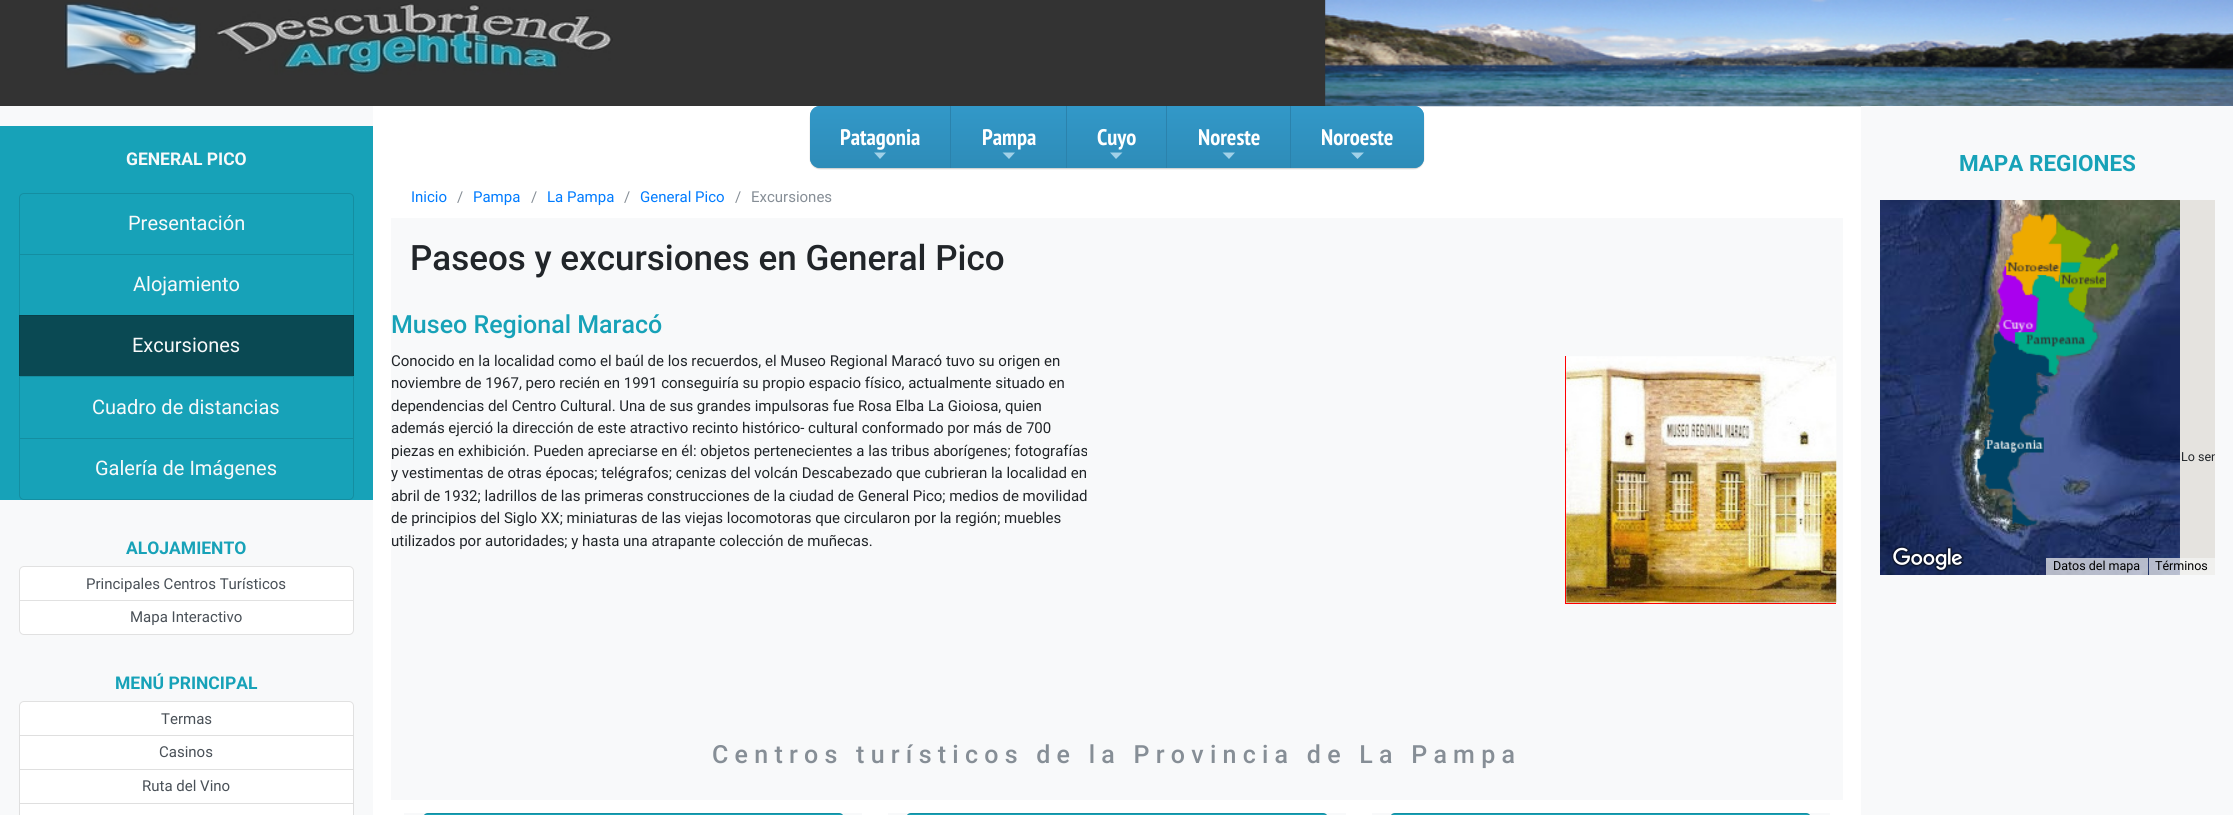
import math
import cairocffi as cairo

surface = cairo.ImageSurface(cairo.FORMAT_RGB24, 2233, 815)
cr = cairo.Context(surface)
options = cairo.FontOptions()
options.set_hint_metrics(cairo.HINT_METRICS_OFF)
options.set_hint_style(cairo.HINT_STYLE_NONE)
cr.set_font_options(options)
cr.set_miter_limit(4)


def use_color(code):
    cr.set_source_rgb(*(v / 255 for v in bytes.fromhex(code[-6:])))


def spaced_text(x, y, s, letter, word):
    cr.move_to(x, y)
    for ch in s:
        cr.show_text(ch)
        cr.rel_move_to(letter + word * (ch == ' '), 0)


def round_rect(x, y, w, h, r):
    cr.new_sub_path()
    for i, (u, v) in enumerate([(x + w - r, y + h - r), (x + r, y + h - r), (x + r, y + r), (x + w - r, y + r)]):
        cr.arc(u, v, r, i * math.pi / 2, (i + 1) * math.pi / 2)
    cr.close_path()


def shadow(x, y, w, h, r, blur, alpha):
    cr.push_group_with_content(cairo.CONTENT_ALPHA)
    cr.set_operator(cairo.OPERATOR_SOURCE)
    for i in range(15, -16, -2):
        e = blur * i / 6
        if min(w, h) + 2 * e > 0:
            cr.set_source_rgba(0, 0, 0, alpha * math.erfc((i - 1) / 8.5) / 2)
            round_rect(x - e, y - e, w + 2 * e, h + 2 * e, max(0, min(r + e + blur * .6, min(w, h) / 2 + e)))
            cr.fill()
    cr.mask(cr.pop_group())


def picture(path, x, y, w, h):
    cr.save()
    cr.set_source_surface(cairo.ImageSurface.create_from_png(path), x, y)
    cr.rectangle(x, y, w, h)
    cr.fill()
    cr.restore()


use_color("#ffffff")
cr.paint()
use_color("#333333")
cr.rectangle(0, 0, 1326, 106)
cr.fill()
picture("img1.png", 64, 2, 549, 73)
picture("img2.png", 1325, 0, 908, 107)
use_color("#f8f9fa")
cr.rectangle(0, 106, 373, 709)
cr.fill()
use_color("#17a2b8")
cr.rectangle(0, 126, 373, 374)
cr.fill()
cr.select_font_face("Roboto", cairo.FONT_SLANT_NORMAL, cairo.FONT_WEIGHT_BOLD)
cr.set_font_size(17.5)
use_color("#f8f9fa")
cr.move_to(126, 165)
cr.show_text("GENERAL PICO")
cr.new_path()
cr.move_to(24, 193.5)
cr.line_to(349, 193.5)
cr.curve_to(351.5, 193.5, 353.5, 195.5, 353.5, 198)
cr.line_to(353.5, 254.5)
cr.line_to(19.5, 254.5)
cr.line_to(19.5, 198)
cr.curve_to(19.5, 195.5, 21.5, 193.5, 24, 193.5)
cr.close_path()
use_color("#148ea1")
cr.set_line_width(1)
cr.stroke()
cr.select_font_face("Roboto")
cr.set_font_size(20)
use_color("#f8f9fa")
cr.move_to(128, 230)
cr.show_text("Presentación")
cr.rectangle(19.5, 254.5, 334, 61)
use_color("#148ea1")
cr.stroke()
use_color("#f8f9fa")
cr.move_to(133, 291)
cr.show_text("Alojamiento")
use_color("#0a4953")
cr.rectangle(20, 316, 333, 60)
cr.fill()
cr.rectangle(19.5, 315.5, 334, 62)
use_color("#094049")
cr.stroke()
use_color("#f8f9fa")
cr.move_to(132, 352)
cr.show_text("Excursiones")
use_color("#17a2b8")
cr.rectangle(20, 377, 333, 1)
cr.fill()
cr.rectangle(19.5, 376.5, 334, 62)
use_color("#148ea1")
cr.stroke()
use_color("#f8f9fa")
cr.move_to(92, 414)
cr.show_text("Cuadro de distancias")
use_color("#17a2b8")
cr.new_path()
cr.move_to(19.5, 438.5)
cr.line_to(353.5, 438.5)
cr.line_to(353.5, 495)
cr.curve_to(353.5, 497.5, 351.5, 499.5, 349, 499.5)
cr.line_to(24, 499.5)
cr.curve_to(21.5, 499.5, 19.5, 497.5, 19.5, 495)
cr.close_path()
cr.fill_preserve()
use_color("#148ea1")
cr.stroke()
use_color("#f8f9fa")
cr.move_to(95, 475)
cr.show_text("Galería de Imágenes")
cr.select_font_face("Roboto", cairo.FONT_SLANT_NORMAL, cairo.FONT_WEIGHT_BOLD)
cr.set_font_size(17.5)
use_color("#17a2b8")
cr.move_to(126, 554)
cr.show_text("ALOJAMIENTO")
use_color("#ffffff")
cr.new_path()
cr.move_to(24, 566)
cr.line_to(349, 566)
cr.curve_to(352, 566, 354, 568, 354, 571)
cr.line_to(354, 601)
cr.line_to(19, 601)
cr.line_to(19, 571)
cr.curve_to(19, 568, 21, 566, 24, 566)
cr.close_path()
cr.fill()
cr.new_path()
cr.move_to(24, 566.5)
cr.line_to(349, 566.5)
cr.curve_to(351.5, 566.5, 353.5, 568.5, 353.5, 571)
cr.line_to(353.5, 600.5)
cr.line_to(19.5, 600.5)
cr.line_to(19.5, 571)
cr.curve_to(19.5, 568.5, 21.5, 566.5, 24, 566.5)
cr.close_path()
cr.set_source_rgba(0, 0, 0, 0.12)
cr.stroke()
cr.select_font_face("Roboto")
cr.set_font_size(15)
use_color("#495057")
cr.move_to(86, 589)
cr.show_text("Principales Centros Turísticos")
use_color("#ffffff")
cr.new_path()
cr.move_to(19, 600)
cr.line_to(354, 600)
cr.line_to(354, 630)
cr.curve_to(354, 633, 352, 635, 349, 635)
cr.line_to(24, 635)
cr.curve_to(21, 635, 19, 633, 19, 630)
cr.close_path()
cr.fill()
cr.new_path()
cr.move_to(19.5, 600.5)
cr.line_to(353.5, 600.5)
cr.line_to(353.5, 630)
cr.curve_to(353.5, 632.5, 351.5, 634.5, 349, 634.5)
cr.line_to(24, 634.5)
cr.curve_to(21.5, 634.5, 19.5, 632.5, 19.5, 630)
cr.close_path()
cr.set_source_rgba(0, 0, 0, 0.12)
cr.stroke()
use_color("#495057")
cr.move_to(130, 622)
cr.show_text("Mapa Interactivo")
cr.select_font_face("Roboto", cairo.FONT_SLANT_NORMAL, cairo.FONT_WEIGHT_BOLD)
cr.set_font_size(17.5)
use_color("#17a2b8")
cr.move_to(115, 689)
cr.show_text("MENÚ PRINCIPAL")
use_color("#ffffff")
cr.new_path()
cr.move_to(24, 701)
cr.line_to(349, 701)
cr.curve_to(352, 701, 354, 703, 354, 706)
cr.line_to(354, 736)
cr.line_to(19, 736)
cr.line_to(19, 706)
cr.curve_to(19, 703, 21, 701, 24, 701)
cr.close_path()
cr.fill()
cr.new_path()
cr.move_to(24, 701.5)
cr.line_to(349, 701.5)
cr.curve_to(351.5, 701.5, 353.5, 703.5, 353.5, 706)
cr.line_to(353.5, 735.5)
cr.line_to(19.5, 735.5)
cr.line_to(19.5, 706)
cr.curve_to(19.5, 703.5, 21.5, 701.5, 24, 701.5)
cr.close_path()
cr.set_source_rgba(0, 0, 0, 0.12)
cr.stroke()
cr.select_font_face("Roboto")
cr.set_font_size(15)
use_color("#495057")
cr.move_to(161, 724)
cr.show_text("Termas")
use_color("#ffffff")
cr.rectangle(19.5, 735.5, 334, 34)
cr.fill_preserve()
use_color("#dfdfdf")
cr.stroke()
use_color("#495057")
cr.move_to(159, 757)
cr.show_text("Casinos")
use_color("#ffffff")
cr.rectangle(19.5, 769.5, 334, 34)
cr.fill_preserve()
use_color("#dfdfdf")
cr.stroke()
use_color("#495057")
cr.move_to(142, 791)
cr.show_text("Ruta del Vino")
use_color("#ffffff")
cr.rectangle(19.5, 803.5, 334, 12)
cr.fill_preserve()
use_color("#dfdfdf")
cr.stroke()
use_color("#000000")
shadow(810, 108, 614, 61, 10, 0.5, 0.2)
gradient = cairo.LinearGradient(1117, 106, 1117, 168)
gradient.add_color_stop_rgba(0, 0.196, 0.596, 0.784, 1)
gradient.add_color_stop_rgba(1, 0.18, 0.549, 0.722, 1)
cr.set_source(gradient)
round_rect(810, 106, 614, 62, 10)
cr.fill()
gradient = cairo.LinearGradient(880, 106, 880, 168)
gradient.add_color_stop_rgba(0, 0.196, 0.596, 0.784, 1)
gradient.add_color_stop_rgba(1, 0.18, 0.549, 0.722, 1)
cr.set_source(gradient)
cr.new_path()
cr.move_to(820, 106)
cr.line_to(950, 106)
cr.line_to(950, 168)
cr.line_to(820, 168)
cr.curve_to(814.5, 168, 810, 163.5, 810, 158)
cr.line_to(810, 116)
cr.curve_to(810, 110.5, 814.5, 106, 820, 106)
cr.close_path()
cr.fill()
cr.select_font_face("PT Sans Narrow", cairo.FONT_SLANT_NORMAL, cairo.FONT_WEIGHT_BOLD)
cr.set_font_size(22.5)
use_color("#ffffff")
cr.move_to(840, 145)
cr.show_text("Patagonia")
use_color("#a1d1e8")
cr.new_path()
cr.move_to(874, 152.5)
cr.line_to(886, 152.5)
cr.line_to(880, 159)
cr.close_path()
cr.fill()
use_color("#2b82ac")
cr.rectangle(950, 106, 1, 62)
cr.fill()
use_color("#ffffff")
cr.move_to(982, 145)
cr.show_text("Pampa")
use_color("#a1d1e8")
cr.new_path()
cr.move_to(1002.5, 152.5)
cr.line_to(1015, 152.5)
cr.line_to(1009, 159)
cr.close_path()
cr.fill()
use_color("#2b82ac")
cr.rectangle(1066, 106, 1, 62)
cr.fill()
use_color("#ffffff")
cr.move_to(1097, 145)
cr.show_text("Cuyo")
use_color("#a1d1e8")
cr.new_path()
cr.move_to(1110, 152.5)
cr.line_to(1122.5, 152.5)
cr.line_to(1116, 159)
cr.close_path()
cr.fill()
use_color("#2b82ac")
cr.rectangle(1166, 106, 1, 62)
cr.fill()
use_color("#ffffff")
cr.move_to(1198, 145)
cr.show_text("Noreste")
use_color("#a1d1e8")
cr.new_path()
cr.move_to(1222.5, 152.5)
cr.line_to(1235, 152.5)
cr.line_to(1229, 159)
cr.close_path()
cr.fill()
use_color("#2b82ac")
cr.rectangle(1290, 106, 1, 62)
cr.fill()
gradient = cairo.LinearGradient(1358, 106, 1358, 168)
gradient.add_color_stop_rgba(0, 0.196, 0.596, 0.784, 1)
gradient.add_color_stop_rgba(1, 0.18, 0.549, 0.722, 1)
cr.set_source(gradient)
cr.new_path()
cr.move_to(1291, 106)
cr.line_to(1414, 106)
cr.curve_to(1419.5, 106, 1424, 110.5, 1424, 116)
cr.line_to(1424, 158)
cr.curve_to(1424, 163.5, 1419.5, 168, 1414, 168)
cr.line_to(1291, 168)
cr.close_path()
cr.fill()
use_color("#ffffff")
cr.move_to(1321, 145)
cr.show_text("Noroeste")
use_color("#a1d1e8")
cr.new_path()
cr.move_to(1351, 152.5)
cr.line_to(1364, 152.5)
cr.line_to(1357.5, 159)
cr.close_path()
cr.fill()
cr.select_font_face("Roboto")
cr.set_font_size(15)
use_color("#007bff")
cr.move_to(411, 202)
cr.show_text("Inicio")
use_color("#868e96")
cr.move_to(457, 202)
cr.show_text("/")
use_color("#007bff")
cr.move_to(473, 202)
cr.show_text("Pampa")
use_color("#868e96")
cr.move_to(531, 202)
cr.show_text("/")
use_color("#007bff")
cr.move_to(547, 202)
cr.show_text("La Pampa")
use_color("#868e96")
cr.move_to(624, 202)
cr.show_text("/")
use_color("#007bff")
cr.move_to(640, 202)
cr.show_text("General Pico")
use_color("#868e96")
cr.move_to(735, 202)
cr.show_text("/")
cr.move_to(751, 202)
cr.show_text("Excursiones")
use_color("#f8f9fa")
cr.rectangle(391, 218, 1452, 597)
cr.fill()
cr.select_font_face("Roboto Medium")
cr.set_font_size(35)
use_color("#212529")
cr.move_to(410, 270)
cr.show_text("Paseos y excursiones en General Pico")
cr.set_font_size(25)
use_color("#17a2b8")
cr.move_to(391, 333)
cr.show_text("Museo Regional Maracó")
cr.select_font_face("Roboto")
cr.set_font_size(15)
use_color("#212529")
cr.move_to(391, 366)
cr.show_text("Conocido en la localidad como el baúl de los recuerdos, el Museo Regional Maracó tuvo su origen en")
cr.move_to(391, 388)
cr.show_text("noviembre de 1967, pero recién en 1991 conseguiría su propio espacio físico, actualmente situado en")
cr.move_to(391, 411)
cr.show_text("dependencias del Centro Cultural. Una de sus grandes impulsoras fue Rosa Elba La Gioiosa, quien")
cr.move_to(391, 433)
cr.show_text("además ejerció la dirección de este atractivo recinto histórico- cultural conformado por más de 700")
cr.move_to(391, 456)
cr.show_text("piezas en exhibición. Pueden apreciarse en él: objetos pertenecientes a las tribus aborígenes; fotografías")
cr.move_to(391, 478)
cr.show_text("y vestimentas de otras épocas; telégrafos; cenizas del volcán Descabezado que cubrieran la localidad en")
cr.move_to(391, 501)
cr.show_text("abril de 1932; ladrillos de las primeras construcciones de la ciudad de General Pico; medios de movilidad")
cr.move_to(391, 523)
cr.show_text("de principios del Siglo XX; miniaturas de las viejas locomotoras que circularon por la región; muebles")
cr.move_to(391, 546)
cr.show_text("utilizados por autoridades; y hasta una atrapante colección de muñecas.")
use_color("#ff0000")
cr.rectangle(1565, 603, 271, 1)
cr.fill()
cr.rectangle(1565, 356, 1, 248)
cr.fill()
picture("img3.png", 1566, 356, 271, 247)
cr.select_font_face("Roboto Medium")
cr.set_font_size(25)
use_color("#868e96")
spaced_text(712, 763, "Centros turísticos de la Provincia de La Pampa", 6.25, 0)
cr.rectangle(397.5, 806.5, 471, 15)
use_color("#ffffff")
cr.set_line_width(13)
cr.stroke()
use_color("#17a2b8")
round_rect(423, 813, 421, 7, 5)
cr.fill()
round_rect(423.5, 813.5, 420, 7, 4.5)
cr.set_source_rgba(0, 0, 0, 0.12)
cr.set_line_width(1)
cr.stroke()
cr.rectangle(881.5, 806.5, 471, 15)
use_color("#ffffff")
cr.set_line_width(13)
cr.stroke()
use_color("#17a2b8")
round_rect(906, 813, 422, 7, 5)
cr.fill()
round_rect(906.5, 813.5, 421, 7, 4.5)
cr.set_source_rgba(0, 0, 0, 0.12)
cr.set_line_width(1)
cr.stroke()
cr.rectangle(1365.5, 806.5, 471, 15)
use_color("#ffffff")
cr.set_line_width(13)
cr.stroke()
use_color("#17a2b8")
round_rect(1390, 813, 421, 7, 5)
cr.fill()
round_rect(1390.5, 813.5, 420, 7, 4.5)
cr.set_source_rgba(0, 0, 0, 0.12)
cr.set_line_width(1)
cr.stroke()
use_color("#f8f9fa")
cr.rectangle(1861, 106, 372, 709)
cr.fill()
cr.select_font_face("Roboto", cairo.FONT_SLANT_NORMAL, cairo.FONT_WEIGHT_BOLD)
cr.set_font_size(22.5)
use_color("#17a2b8")
cr.move_to(1959, 171)
cr.show_text("MAPA REGIONES")
use_color("#e5e3df")
cr.rectangle(2180, 200, 35, 375)
cr.fill()
picture("img11.png", 1880, 200, 300, 175)
picture("img4.png", 1988, 213, 131, 162)
picture("img12.png", 1880, 375, 300, 200)
picture("img5.png", 1976, 375, 78, 152)
picture("img6.png", 2006, 260, 55, 15)
picture("img7.png", 2060, 272, 47, 16)
picture("img8.png", 2001, 317, 35, 16)
picture("img9.png", 2025, 332, 61, 15)
picture("img10.png", 1985, 437, 59, 16)
cr.save()
cr.rectangle(1880, 200, 335, 375)
cr.clip()
cr.select_font_face("Roboto")
cr.set_font_size(12.5)
use_color("#212529")
cr.move_to(2181, 461)
cr.show_text("Lo sen")
cr.restore()
picture("img13.png", 1891, 546, 73, 26)
cr.set_source_rgba(0.961, 0.961, 0.961, 0.7)
cr.rectangle(2046, 558, 102, 17)
cr.fill()
cr.select_font_face("Roboto")
cr.set_font_size(12.5)
use_color("#000000")
cr.move_to(2053, 570)
cr.show_text("Datos del mapa")
cr.set_source_rgba(0.961, 0.961, 0.961, 0.7)
cr.rectangle(2149, 558, 66, 17)
cr.fill()
use_color("#000000")
cr.move_to(2155, 570)
cr.show_text("Términos")
surface.write_to_png("result.png")
